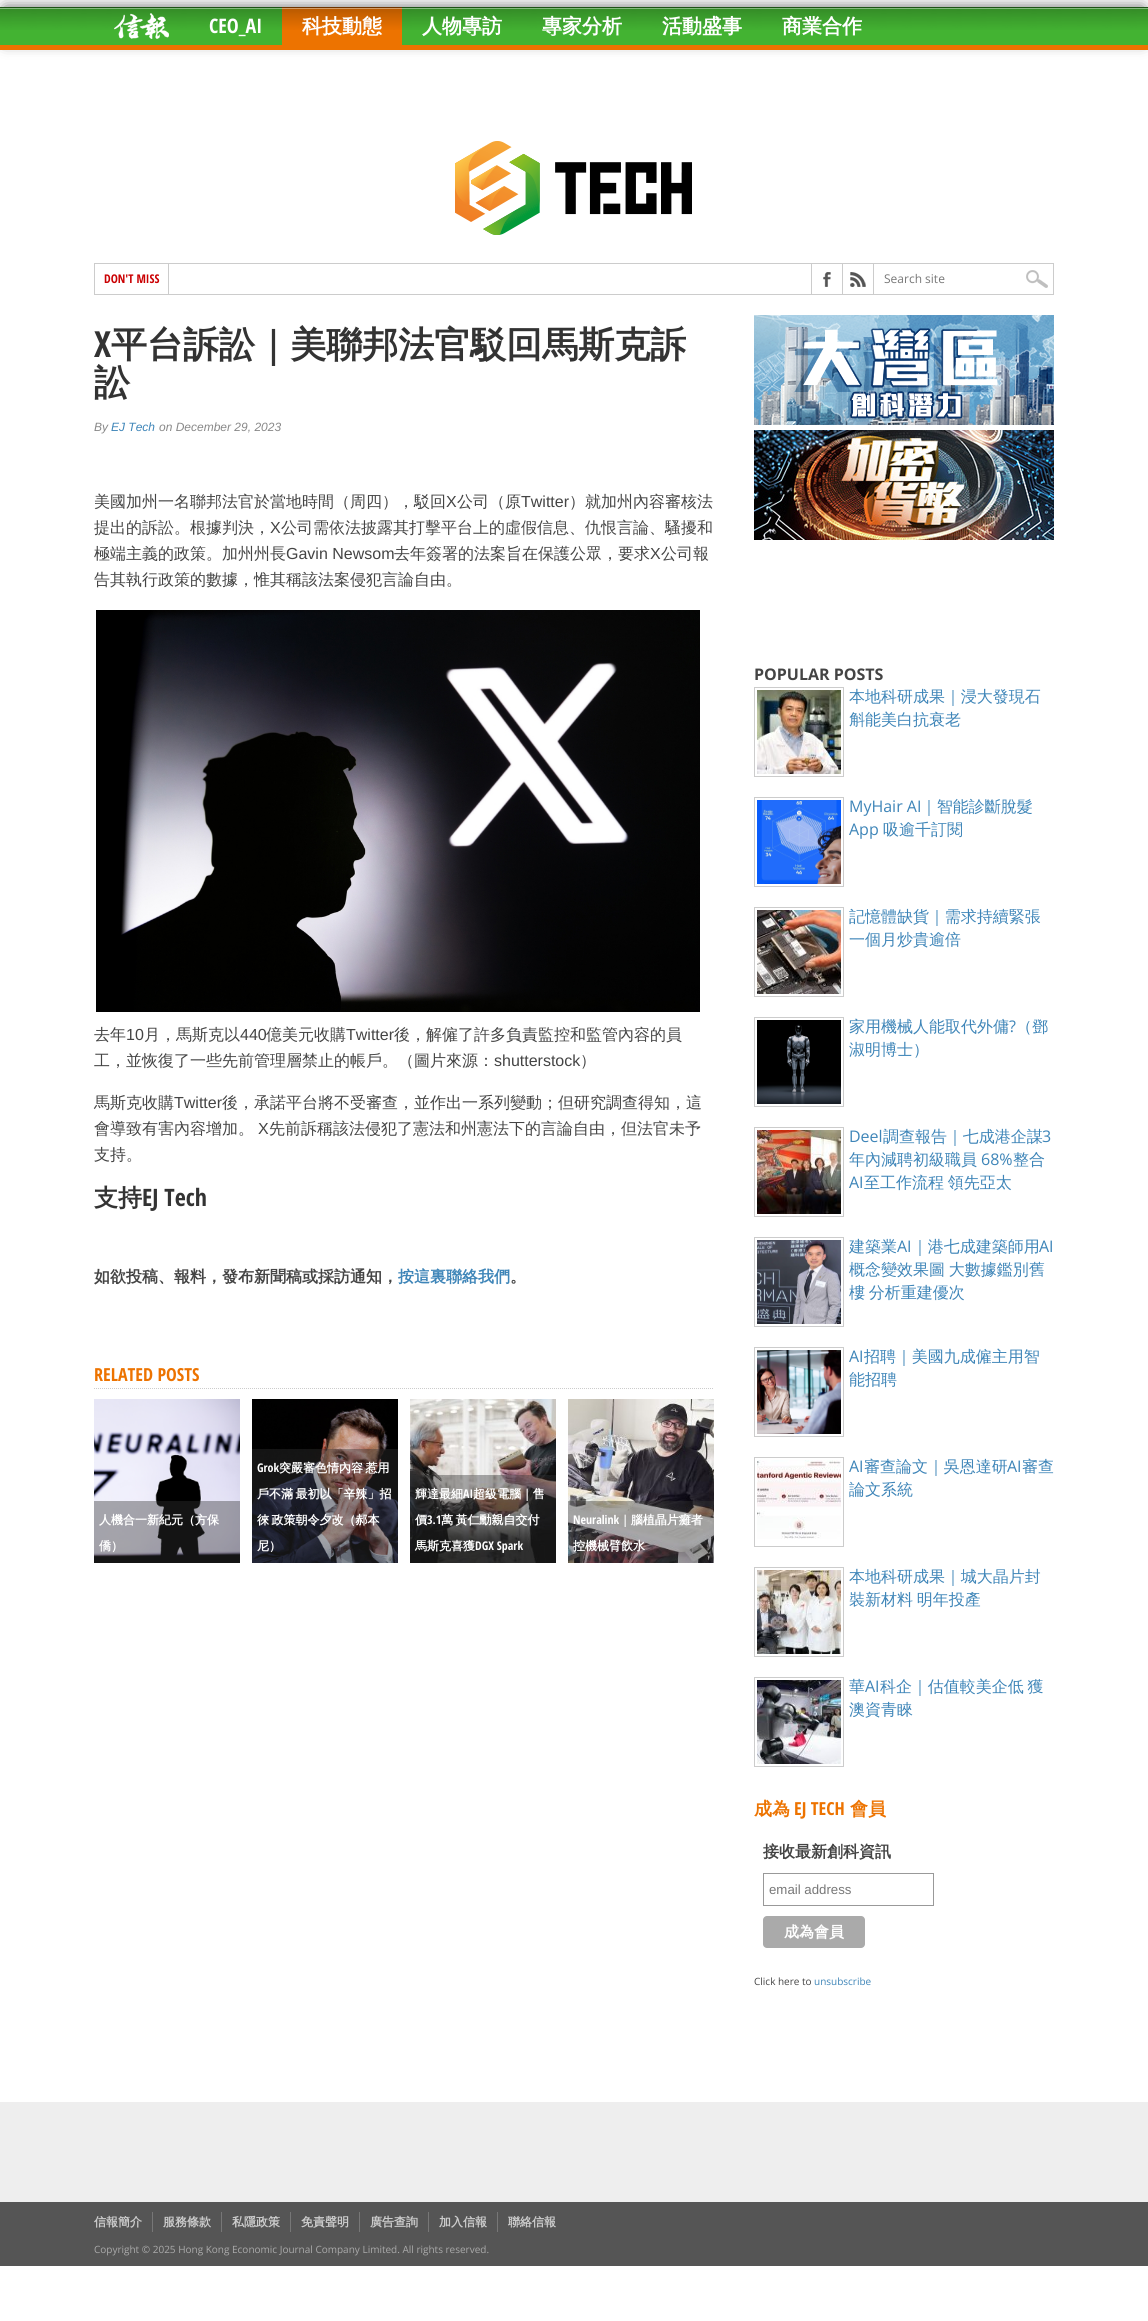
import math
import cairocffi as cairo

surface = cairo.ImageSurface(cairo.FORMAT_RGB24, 1148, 2321)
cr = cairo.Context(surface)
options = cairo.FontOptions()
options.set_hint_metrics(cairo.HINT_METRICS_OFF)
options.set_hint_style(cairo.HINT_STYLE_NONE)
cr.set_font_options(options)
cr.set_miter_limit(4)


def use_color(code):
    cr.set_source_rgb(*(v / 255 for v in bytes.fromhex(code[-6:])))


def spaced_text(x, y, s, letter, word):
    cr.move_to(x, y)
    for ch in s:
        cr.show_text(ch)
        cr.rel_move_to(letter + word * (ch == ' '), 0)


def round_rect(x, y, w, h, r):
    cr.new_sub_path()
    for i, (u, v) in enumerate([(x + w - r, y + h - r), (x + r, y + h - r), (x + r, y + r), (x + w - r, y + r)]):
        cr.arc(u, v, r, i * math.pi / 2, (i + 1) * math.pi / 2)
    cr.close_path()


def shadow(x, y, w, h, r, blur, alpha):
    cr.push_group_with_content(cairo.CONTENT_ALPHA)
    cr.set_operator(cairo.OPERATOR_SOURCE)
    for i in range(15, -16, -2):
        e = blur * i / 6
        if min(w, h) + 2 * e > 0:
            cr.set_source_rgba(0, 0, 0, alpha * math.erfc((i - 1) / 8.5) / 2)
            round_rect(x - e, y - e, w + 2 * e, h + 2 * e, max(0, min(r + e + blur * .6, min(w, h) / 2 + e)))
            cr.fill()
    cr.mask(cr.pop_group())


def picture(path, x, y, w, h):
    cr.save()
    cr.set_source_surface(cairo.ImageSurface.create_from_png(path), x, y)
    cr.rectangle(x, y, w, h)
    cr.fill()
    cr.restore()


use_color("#ffffff")
cr.paint()
use_color("#555555")
shadow(5, 8, 1138, 33, 0, 7.5, 1)
use_color("#43b332")
cr.rectangle(0, 7, 1148, 38)
cr.fill()
picture("img1.png", 0, 7, 1148, 23)
use_color("#ed7300")
cr.rectangle(0, 45, 1148, 5)
cr.fill()
picture("img2.png", 114, 13, 55, 26)
cr.select_font_face("Open Sans Condensed", cairo.FONT_SLANT_NORMAL, cairo.FONT_WEIGHT_BOLD)
cr.set_font_size(20)
use_color("#ffffff")
cr.move_to(209, 33)
cr.show_text("CEO_AI")
use_color("#ed7300")
cr.rectangle(282, 7, 120, 38)
cr.fill()
picture("img3.png", 282, 7, 120, 23)
cr.select_font_face("WenQuanYi Zen Hei", cairo.FONT_SLANT_NORMAL, cairo.FONT_WEIGHT_BOLD)
use_color("#ffffff")
cr.move_to(302, 33)
cr.show_text("科技動態")
cr.move_to(422, 33)
cr.show_text("人物專訪")
cr.move_to(542, 33)
cr.show_text("專家分析")
cr.move_to(662, 33)
cr.show_text("活動盛事")
cr.move_to(782, 33)
cr.show_text("商業合作")
picture("img4.png", 455, 141, 237, 94)
cr.rectangle(94.5, 263.5, 959, 31)
use_color("#cccccc")
cr.set_line_width(1)
cr.stroke()
cr.rectangle(168, 264, 1, 30)
cr.fill()
cr.select_font_face("Open Sans Condensed", cairo.FONT_SLANT_NORMAL, cairo.FONT_WEIGHT_BOLD)
cr.set_font_size(12)
use_color("#ca0002")
cr.move_to(104, 283)
cr.show_text("DON'T MISS")
use_color("#cccccc")
cr.rectangle(811, 264, 1, 30)
cr.fill()
picture("img5.png", 823, 272, 8, 15)
cr.rectangle(842, 264, 1, 30)
cr.fill()
picture("img6.png", 850, 272, 16, 15)
cr.rectangle(873, 264, 1, 30)
cr.fill()
picture("img7.png", 1026, 270, 22, 18)
cr.select_font_face("Open Sans")
use_color("#777777")
cr.move_to(884, 283)
cr.show_text("Search site")
cr.select_font_face("Open Sans Condensed", cairo.FONT_SLANT_NORMAL, cairo.FONT_WEIGHT_BOLD)
cr.set_font_size(36)
use_color("#333333")
cr.move_to(94, 357)
cr.show_text("X")
cr.select_font_face("WenQuanYi Zen Hei", cairo.FONT_SLANT_NORMAL, cairo.FONT_WEIGHT_BOLD)
cr.move_to(111, 357)
cr.show_text("平台訴訟｜美聯邦法官駁回馬斯克訴")
cr.move_to(94, 395)
cr.show_text("訟")
cr.select_font_face("Liberation Sans", cairo.FONT_SLANT_ITALIC)
cr.set_font_size(12)
use_color("#888888")
cr.move_to(94, 431)
cr.show_text("By")
use_color("#3e85b8")
cr.move_to(111, 431)
cr.show_text("EJ Tech")
use_color("#888888")
cr.move_to(159, 431)
cr.show_text("on December 29, 2023")
cr.select_font_face("WenQuanYi Zen Hei Medium")
cr.set_font_size(16)
use_color("#444444")
cr.move_to(94, 507)
cr.show_text("美國加州一名聯邦法官於當地時間（周四），駁回")
cr.select_font_face("Liberation Sans")
cr.move_to(446, 507)
cr.show_text("X")
cr.select_font_face("WenQuanYi Zen Hei Medium")
cr.move_to(457, 507)
cr.show_text("公司（原")
cr.select_font_face("Liberation Sans")
cr.move_to(521, 507)
cr.show_text("Twitter")
cr.select_font_face("WenQuanYi Zen Hei Medium")
cr.move_to(569, 507)
cr.show_text("）就加州內容審核法")
cr.move_to(94, 533)
cr.show_text("提出的訴訟。根據判決，")
cr.select_font_face("Liberation Sans")
cr.move_to(270, 533)
cr.show_text("X")
cr.select_font_face("WenQuanYi Zen Hei Medium")
cr.move_to(281, 533)
cr.show_text("公司需依法披露其打擊平台上的虛假信息、仇恨言論、騷擾和")
cr.move_to(94, 559)
cr.show_text("極端主義的政策。加州州長")
cr.select_font_face("Liberation Sans")
cr.move_to(286, 559)
cr.show_text("Gavin Newsom")
cr.select_font_face("WenQuanYi Zen Hei Medium")
cr.move_to(394, 559)
cr.show_text("去年簽署的法案旨在保護公眾，要求")
cr.select_font_face("Liberation Sans")
cr.move_to(650, 559)
cr.show_text("X")
cr.select_font_face("WenQuanYi Zen Hei Medium")
cr.move_to(661, 559)
cr.show_text("公司報")
cr.move_to(94, 585)
cr.show_text("告其執行政策的數據，惟其稱該法案侵犯言論自由。")
picture("img8.png", 96, 610, 604, 402)
cr.move_to(94, 1040)
cr.show_text("去年")
cr.select_font_face("Liberation Sans")
cr.move_to(126, 1040)
cr.show_text("10")
cr.select_font_face("WenQuanYi Zen Hei Medium")
cr.move_to(144, 1040)
cr.show_text("月，馬斯克以")
cr.select_font_face("Liberation Sans")
cr.move_to(240, 1040)
cr.show_text("440")
cr.select_font_face("WenQuanYi Zen Hei Medium")
cr.move_to(266, 1040)
cr.show_text("億美元收購")
cr.select_font_face("Liberation Sans")
cr.move_to(346, 1040)
cr.show_text("Twitter")
cr.select_font_face("WenQuanYi Zen Hei Medium")
cr.move_to(394, 1040)
cr.show_text("後，解僱了許多負責監控和監管內容的員")
cr.move_to(94, 1066)
cr.show_text("工，並恢復了一些先前管理層禁止的帳戶。（圖片來源：")
cr.select_font_face("Liberation Sans")
cr.move_to(494, 1066)
cr.show_text("shutterstock")
cr.select_font_face("WenQuanYi Zen Hei Medium")
cr.move_to(580, 1066)
cr.show_text("）")
cr.move_to(94, 1108)
cr.show_text("馬斯克收購")
cr.select_font_face("Liberation Sans")
cr.move_to(174, 1108)
cr.show_text("Twitter")
cr.select_font_face("WenQuanYi Zen Hei Medium")
cr.move_to(222, 1108)
cr.show_text("後，承諾平台將不受審查，並作出一系列變動；但研究調查得知，這")
cr.move_to(94, 1134)
cr.show_text("會導致有害內容增加。")
cr.select_font_face("Liberation Sans")
cr.move_to(258, 1134)
cr.show_text("X")
cr.select_font_face("WenQuanYi Zen Hei Medium")
cr.move_to(269, 1134)
cr.show_text("先前訴稱該法侵犯了憲法和州憲法下的言論自由，但法官未予")
cr.move_to(94, 1160)
cr.show_text("支持。")
cr.select_font_face("WenQuanYi Zen Hei", cairo.FONT_SLANT_NORMAL, cairo.FONT_WEIGHT_BOLD)
cr.set_font_size(24)
use_color("#333333")
cr.move_to(94, 1206)
cr.show_text("支持")
cr.select_font_face("Open Sans Condensed", cairo.FONT_SLANT_NORMAL, cairo.FONT_WEIGHT_BOLD)
cr.move_to(142, 1206)
cr.show_text("EJ Tech")
cr.select_font_face("WenQuanYi Zen Hei", cairo.FONT_SLANT_NORMAL, cairo.FONT_WEIGHT_BOLD)
cr.set_font_size(16)
use_color("#444444")
cr.move_to(94, 1282)
cr.show_text("如欲投稿、報料，發布新聞稿或採訪通知，")
use_color("#3e85b8")
cr.move_to(398, 1282)
cr.show_text("按這裏聯絡我們")
use_color("#444444")
cr.move_to(510, 1282)
cr.show_text("。")
cr.new_path()
cr.move_to(94, 1388.5)
cr.line_to(714, 1388.5)
use_color("#cccccc")
cr.set_dash([1, 1])
cr.stroke()
cr.select_font_face("Open Sans Condensed", cairo.FONT_SLANT_NORMAL, cairo.FONT_WEIGHT_BOLD)
cr.set_font_size(18)
use_color("#ed7300")
cr.move_to(94, 1381)
cr.show_text("RELATED POSTS")
picture("img9.png", 94, 1399, 146, 164)
cr.set_source_rgba(0.196, 0.196, 0.196, 0.4)
cr.rectangle(94, 1501, 146, 62)
cr.fill()
cr.select_font_face("WenQuanYi Zen Hei", cairo.FONT_SLANT_NORMAL, cairo.FONT_WEIGHT_BOLD)
cr.set_font_size(12)
use_color("#ffffff")
cr.move_to(99, 1524)
cr.show_text("人機合一新紀元（方保")
cr.move_to(99, 1550)
cr.show_text("僑）")
picture("img10.png", 252, 1399, 146, 164)
cr.set_source_rgba(0.196, 0.196, 0.196, 0.4)
cr.rectangle(252, 1449, 146, 114)
cr.fill()
cr.select_font_face("Open Sans Condensed", cairo.FONT_SLANT_NORMAL, cairo.FONT_WEIGHT_BOLD)
use_color("#ffffff")
cr.move_to(257, 1472)
cr.show_text("Grok")
cr.select_font_face("WenQuanYi Zen Hei", cairo.FONT_SLANT_NORMAL, cairo.FONT_WEIGHT_BOLD)
spaced_text(279, 1472, "突嚴審色情內容 惹用", 0, -1)
spaced_text(257, 1498, "戶不滿 最初以「辛辣」招", 0, -1)
spaced_text(257, 1524, "徠 政策朝令夕改（郝本", 0, -1)
cr.move_to(257, 1550)
cr.show_text("尼）")
picture("img11.png", 410, 1399, 146, 164)
cr.set_source_rgba(0.196, 0.196, 0.196, 0.4)
cr.rectangle(410, 1475, 146, 88)
cr.fill()
use_color("#ffffff")
cr.move_to(415, 1498)
cr.show_text("輝達最細")
cr.select_font_face("Open Sans Condensed", cairo.FONT_SLANT_NORMAL, cairo.FONT_WEIGHT_BOLD)
cr.move_to(463, 1498)
cr.show_text("AI")
cr.select_font_face("WenQuanYi Zen Hei", cairo.FONT_SLANT_NORMAL, cairo.FONT_WEIGHT_BOLD)
cr.move_to(473, 1498)
cr.show_text("超級電腦｜售")
cr.move_to(415, 1524)
cr.show_text("價")
cr.select_font_face("Open Sans Condensed", cairo.FONT_SLANT_NORMAL, cairo.FONT_WEIGHT_BOLD)
cr.move_to(427, 1524)
cr.show_text("3.1")
cr.select_font_face("WenQuanYi Zen Hei", cairo.FONT_SLANT_NORMAL, cairo.FONT_WEIGHT_BOLD)
spaced_text(441, 1524, "萬 黃仁勳親自交付", 0, -1)
cr.move_to(415, 1550)
cr.show_text("馬斯克喜獲")
cr.select_font_face("Open Sans Condensed", cairo.FONT_SLANT_NORMAL, cairo.FONT_WEIGHT_BOLD)
cr.move_to(475, 1550)
cr.show_text("DGX Spark")
picture("img12.png", 568, 1399, 146, 164)
cr.set_source_rgba(0.196, 0.196, 0.196, 0.4)
cr.rectangle(568, 1501, 146, 62)
cr.fill()
use_color("#ffffff")
cr.move_to(573, 1524)
cr.show_text("Neuralink")
cr.select_font_face("WenQuanYi Zen Hei", cairo.FONT_SLANT_NORMAL, cairo.FONT_WEIGHT_BOLD)
cr.move_to(619, 1524)
cr.show_text("｜腦植晶片癱者")
cr.move_to(573, 1550)
cr.show_text("控機械臂飲水")
picture("img13.png", 754, 315, 300, 110)
picture("img14.png", 754, 430, 300, 110)
cr.select_font_face("Open Sans", cairo.FONT_SLANT_NORMAL, cairo.FONT_WEIGHT_BOLD)
cr.set_font_size(16)
use_color("#444444")
cr.move_to(754, 680)
cr.show_text("POPULAR POSTS")
cr.rectangle(754.5, 687.5, 89, 89)
use_color("#cccccc")
cr.set_dash([])
cr.stroke()
picture("img15.png", 757, 690, 84, 84)
cr.select_font_face("WenQuanYi Zen Hei Medium")
use_color("#3e85b8")
cr.move_to(849, 702)
cr.show_text("本地科研成果｜浸大發現石")
cr.move_to(849, 725)
cr.show_text("斛能美白抗衰老")
cr.rectangle(754.5, 797.5, 89, 89)
use_color("#cccccc")
cr.stroke()
picture("img16.png", 757, 800, 84, 84)
cr.select_font_face("Open Sans")
use_color("#3e85b8")
cr.move_to(849, 812)
cr.show_text("MyHair AI")
cr.select_font_face("WenQuanYi Zen Hei Medium")
cr.move_to(921, 812)
cr.show_text("｜智能診斷脫髮")
cr.select_font_face("Open Sans")
cr.move_to(849, 835)
cr.show_text("App")
cr.select_font_face("WenQuanYi Zen Hei Medium")
cr.move_to(883, 835)
cr.show_text("吸逾千訂閱")
cr.rectangle(754.5, 907.5, 89, 89)
use_color("#cccccc")
cr.stroke()
picture("img17.png", 757, 910, 84, 84)
use_color("#3e85b8")
cr.move_to(849, 922)
cr.show_text("記憶體缺貨｜需求持續緊張")
cr.move_to(849, 945)
cr.show_text("一個月炒貴逾倍")
cr.rectangle(754.5, 1017.5, 89, 89)
use_color("#cccccc")
cr.stroke()
picture("img18.png", 757, 1020, 84, 84)
use_color("#3e85b8")
cr.move_to(849, 1032)
cr.show_text("家用機械人能取代外傭")
cr.select_font_face("Open Sans")
cr.move_to(1009, 1032)
cr.show_text("?")
cr.select_font_face("WenQuanYi Zen Hei Medium")
cr.move_to(1016, 1032)
cr.show_text("（鄧")
cr.move_to(849, 1055)
cr.show_text("淑明博士）")
cr.rectangle(754.5, 1127.5, 89, 89)
use_color("#cccccc")
cr.stroke()
picture("img19.png", 757, 1130, 84, 84)
cr.select_font_face("Open Sans")
use_color("#3e85b8")
cr.move_to(849, 1142)
cr.show_text("Deel")
cr.select_font_face("WenQuanYi Zen Hei Medium")
cr.move_to(883, 1142)
cr.show_text("調查報告｜七成港企謀")
cr.select_font_face("Open Sans")
cr.move_to(1042, 1142)
cr.show_text("3")
cr.select_font_face("WenQuanYi Zen Hei Medium")
cr.move_to(849, 1165)
cr.show_text("年內減聘初級職員")
cr.select_font_face("Open Sans")
cr.move_to(981, 1165)
cr.show_text("68%")
cr.select_font_face("WenQuanYi Zen Hei Medium")
cr.move_to(1013, 1165)
cr.show_text("整合")
cr.select_font_face("Open Sans")
cr.move_to(849, 1188)
cr.show_text("AI")
cr.select_font_face("WenQuanYi Zen Hei Medium")
spaced_text(864, 1188, "至工作流程 領先亞太", 0, -1)
cr.rectangle(754.5, 1237.5, 89, 89)
use_color("#cccccc")
cr.stroke()
picture("img20.png", 757, 1240, 84, 84)
use_color("#3e85b8")
cr.move_to(849, 1252)
cr.show_text("建築業")
cr.select_font_face("Open Sans")
cr.move_to(897, 1252)
cr.show_text("AI")
cr.select_font_face("WenQuanYi Zen Hei Medium")
cr.move_to(912, 1252)
cr.show_text("｜港七成建築師用")
cr.select_font_face("Open Sans")
cr.move_to(1039, 1252)
cr.show_text("AI")
cr.select_font_face("WenQuanYi Zen Hei Medium")
spaced_text(849, 1275, "概念變效果圖 大數據鑑別舊", 0, -1)
spaced_text(849, 1298, "樓 分析重建優次", 0, -1)
cr.rectangle(754.5, 1347.5, 89, 89)
use_color("#cccccc")
cr.stroke()
picture("img21.png", 757, 1350, 84, 84)
cr.select_font_face("Open Sans")
use_color("#3e85b8")
cr.move_to(849, 1362)
cr.show_text("AI")
cr.select_font_face("WenQuanYi Zen Hei Medium")
cr.move_to(864, 1362)
cr.show_text("招聘｜美國九成僱主用智")
cr.move_to(849, 1385)
cr.show_text("能招聘")
cr.rectangle(754.5, 1457.5, 89, 89)
use_color("#cccccc")
cr.stroke()
picture("img22.png", 757, 1460, 84, 79)
cr.select_font_face("Open Sans")
use_color("#3e85b8")
cr.move_to(849, 1472)
cr.show_text("AI")
cr.select_font_face("WenQuanYi Zen Hei Medium")
cr.move_to(864, 1472)
cr.show_text("審查論文｜吳恩達研")
cr.select_font_face("Open Sans")
cr.move_to(1007, 1472)
cr.show_text("AI")
cr.select_font_face("WenQuanYi Zen Hei Medium")
cr.move_to(1022, 1472)
cr.show_text("審查")
cr.move_to(849, 1495)
cr.show_text("論文系統")
cr.rectangle(754.5, 1567.5, 89, 89)
use_color("#cccccc")
cr.stroke()
picture("img23.png", 757, 1570, 84, 84)
use_color("#3e85b8")
cr.move_to(849, 1582)
cr.show_text("本地科研成果｜城大晶片封")
spaced_text(849, 1605, "裝新材料 明年投產", 0, -1)
cr.rectangle(754.5, 1677.5, 89, 89)
use_color("#cccccc")
cr.stroke()
picture("img24.png", 757, 1680, 84, 84)
use_color("#3e85b8")
cr.move_to(849, 1692)
cr.show_text("華")
cr.select_font_face("Open Sans")
cr.move_to(865, 1692)
cr.show_text("AI")
cr.select_font_face("WenQuanYi Zen Hei Medium")
spaced_text(880, 1692, "科企｜估值較美企低 獲", 0, -1)
cr.move_to(849, 1715)
cr.show_text("澳資青睞")
cr.select_font_face("WenQuanYi Zen Hei", cairo.FONT_SLANT_NORMAL, cairo.FONT_WEIGHT_BOLD)
cr.set_font_size(18)
use_color("#ed7300")
cr.move_to(754, 1815)
cr.show_text("成為")
cr.select_font_face("Open Sans Condensed", cairo.FONT_SLANT_NORMAL, cairo.FONT_WEIGHT_BOLD)
cr.move_to(794, 1815)
cr.show_text("EJ TECH")
cr.select_font_face("WenQuanYi Zen Hei", cairo.FONT_SLANT_NORMAL, cairo.FONT_WEIGHT_BOLD)
cr.move_to(850, 1815)
cr.show_text("會員")
cr.set_font_size(16)
use_color("#444444")
cr.move_to(763, 1857)
cr.show_text("接收最新創科資訊")
cr.rectangle(763.5, 1873.5, 170, 32)
use_color("#999999")
cr.stroke()
cr.select_font_face("Liberation Sans")
cr.set_font_size(13.25)
use_color("#777777")
cr.move_to(769, 1894)
cr.show_text("email address")
use_color("#aaaaaa")
round_rect(763, 1916, 102, 32, 4)
cr.fill()
cr.select_font_face("WenQuanYi Zen Hei", cairo.FONT_SLANT_NORMAL, cairo.FONT_WEIGHT_BOLD)
cr.set_font_size(15)
use_color("#ffffff")
cr.move_to(784, 1937)
cr.show_text("成為會員")
cr.select_font_face("Open Sans")
cr.set_font_size(10)
use_color("#444444")
cr.move_to(754, 1985)
cr.show_text("Click here to")
use_color("#3e85b8")
cr.move_to(814, 1985)
cr.show_text("unsubscribe")
use_color("#eeeeee")
cr.rectangle(0, 2102, 1148, 100)
cr.fill()
use_color("#555555")
cr.rectangle(0, 2202, 1148, 64)
cr.fill()
use_color("#777777")
cr.rectangle(152, 2212, 1, 20)
cr.fill()
cr.select_font_face("WenQuanYi Zen Hei", cairo.FONT_SLANT_NORMAL, cairo.FONT_WEIGHT_BOLD)
cr.set_font_size(12)
use_color("#cccccc")
cr.move_to(94, 2226)
cr.show_text("信報簡介")
use_color("#777777")
cr.rectangle(221, 2212, 1, 20)
cr.fill()
use_color("#cccccc")
cr.move_to(163, 2226)
cr.show_text("服務條款")
use_color("#777777")
cr.rectangle(290, 2212, 1, 20)
cr.fill()
use_color("#cccccc")
cr.move_to(232, 2226)
cr.show_text("私隱政策")
use_color("#777777")
cr.rectangle(359, 2212, 1, 20)
cr.fill()
use_color("#cccccc")
cr.move_to(301, 2226)
cr.show_text("免責聲明")
use_color("#777777")
cr.rectangle(428, 2212, 1, 20)
cr.fill()
use_color("#cccccc")
cr.move_to(370, 2226)
cr.show_text("廣告查詢")
use_color("#777777")
cr.rectangle(497, 2212, 1, 20)
cr.fill()
use_color("#cccccc")
cr.move_to(439, 2226)
cr.show_text("加入信報")
cr.move_to(508, 2226)
cr.show_text("聯絡信報")
cr.select_font_face("Open Sans")
cr.set_font_size(10)
use_color("#aaaaaa")
cr.move_to(94, 2253)
cr.show_text("Copyright © 2025 Hong Kong Economic Journal Company Limited. All rights reserved.")
surface.write_to_png("result.png")
